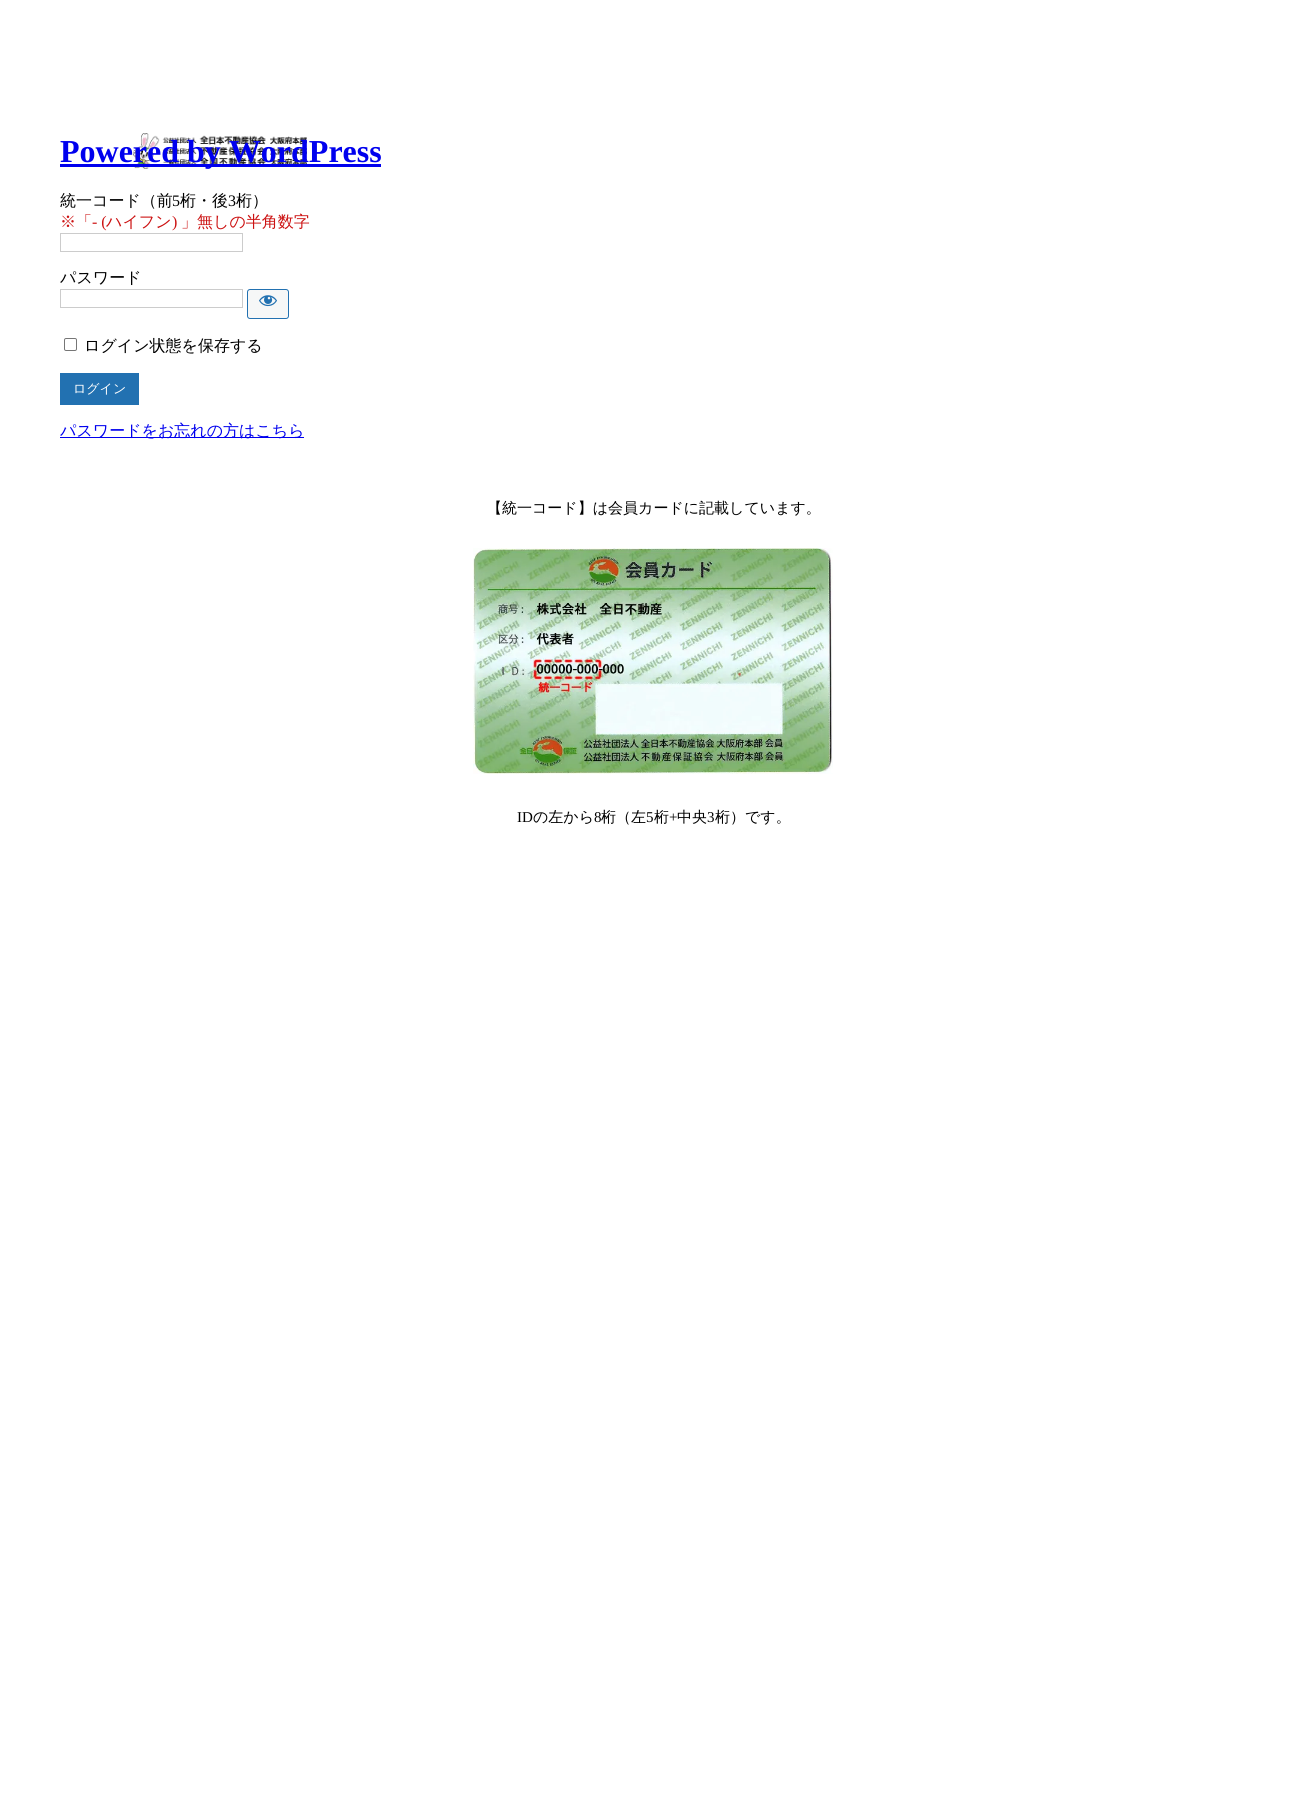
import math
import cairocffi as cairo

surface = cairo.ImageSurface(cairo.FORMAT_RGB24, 1307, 1796)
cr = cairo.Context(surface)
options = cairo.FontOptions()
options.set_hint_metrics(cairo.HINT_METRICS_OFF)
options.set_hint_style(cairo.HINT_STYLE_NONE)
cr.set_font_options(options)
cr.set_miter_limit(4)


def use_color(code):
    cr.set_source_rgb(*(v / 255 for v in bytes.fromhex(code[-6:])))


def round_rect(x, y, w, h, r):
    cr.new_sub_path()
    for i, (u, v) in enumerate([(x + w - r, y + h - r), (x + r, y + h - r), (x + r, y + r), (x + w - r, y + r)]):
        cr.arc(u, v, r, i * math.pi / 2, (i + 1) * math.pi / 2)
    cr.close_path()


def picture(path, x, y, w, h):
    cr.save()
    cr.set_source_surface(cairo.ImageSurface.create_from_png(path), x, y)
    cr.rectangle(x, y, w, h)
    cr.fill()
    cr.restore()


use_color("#ffffff")
cr.paint()
picture("img1.png", 133, 133, 174, 36)
use_color("#0000ee")
cr.rectangle(60, 164, 321, 3)
cr.fill()
cr.select_font_face("Liberation Serif", cairo.FONT_SLANT_NORMAL, cairo.FONT_WEIGHT_BOLD)
cr.set_font_size(32)
cr.move_to(60, 162)
cr.show_text("Powered by WordPress")
cr.select_font_face("WenQuanYi Zen Hei Medium")
cr.set_font_size(16)
use_color("#000000")
cr.move_to(60, 206)
cr.show_text("統一コード（前")
cr.select_font_face("Liberation Serif")
cr.move_to(172, 206)
cr.show_text("5")
cr.select_font_face("WenQuanYi Zen Hei Medium")
cr.move_to(180, 206)
cr.show_text("桁・後")
cr.select_font_face("Liberation Serif")
cr.move_to(228, 206)
cr.show_text("3")
cr.select_font_face("WenQuanYi Zen Hei Medium")
cr.move_to(236, 206)
cr.show_text("桁）")
use_color("#cc1111")
cr.move_to(60, 227)
cr.show_text("※「")
cr.select_font_face("Liberation Serif")
cr.move_to(92, 227)
cr.show_text("- (")
cr.select_font_face("WenQuanYi Zen Hei Medium")
cr.move_to(106, 227)
cr.show_text("ハイフン")
cr.select_font_face("Liberation Serif")
cr.move_to(172, 227)
cr.show_text(")")
cr.select_font_face("WenQuanYi Zen Hei Medium")
cr.move_to(181, 227)
cr.show_text("」無しの半角数字")
cr.rectangle(60.5, 233.5, 182, 18)
use_color("#cccccc")
cr.set_line_width(1)
cr.stroke()
use_color("#000000")
cr.move_to(60, 283)
cr.show_text("パスワード")
cr.rectangle(60.5, 289.5, 182, 18)
use_color("#cccccc")
cr.stroke()
use_color("#f6f7f7")
round_rect(247.5, 289.5, 41, 29, 2.5)
cr.fill_preserve()
use_color("#2271b1")
cr.stroke()
picture("img2.png", 259, 295, 18, 12)
round_rect(64.5, 338.5, 12, 12, 1.5)
use_color("#767676")
cr.stroke()
use_color("#000000")
cr.move_to(84, 351)
cr.show_text("ログイン状態を保存する")
use_color("#2271b1")
cr.rectangle(60, 373, 79, 32)
cr.fill()
cr.set_font_size(13)
use_color("#ffffff")
cr.move_to(73, 393)
cr.show_text("ログイン")
use_color("#0000ee")
cr.rectangle(60, 437, 244, 1)
cr.fill()
cr.set_font_size(16)
cr.move_to(60, 436)
cr.show_text("パスワードをお忘れの方はこちら")
cr.set_font_size(15)
use_color("#000000")
cr.move_to(487, 513)
cr.show_text("【統一コード】は会員カードに記載しています。")
picture("img3.png", 473, 548, 360, 226)
cr.select_font_face("Liberation Serif")
cr.move_to(517, 822)
cr.show_text("ID")
cr.select_font_face("WenQuanYi Zen Hei Medium")
cr.move_to(533, 822)
cr.show_text("の左から")
cr.select_font_face("Liberation Serif")
cr.move_to(594, 822)
cr.show_text("8")
cr.select_font_face("WenQuanYi Zen Hei Medium")
cr.move_to(601, 822)
cr.show_text("桁（左")
cr.select_font_face("Liberation Serif")
cr.move_to(646, 822)
cr.show_text("5")
cr.select_font_face("WenQuanYi Zen Hei Medium")
cr.move_to(654, 822)
cr.show_text("桁")
cr.select_font_face("Liberation Serif")
cr.move_to(669, 822)
cr.show_text("+")
cr.select_font_face("WenQuanYi Zen Hei Medium")
cr.move_to(677, 822)
cr.show_text("中央")
cr.select_font_face("Liberation Serif")
cr.move_to(707, 822)
cr.show_text("3")
cr.select_font_face("WenQuanYi Zen Hei Medium")
cr.move_to(715, 822)
cr.show_text("桁）です。")
surface.write_to_png("result.png")
